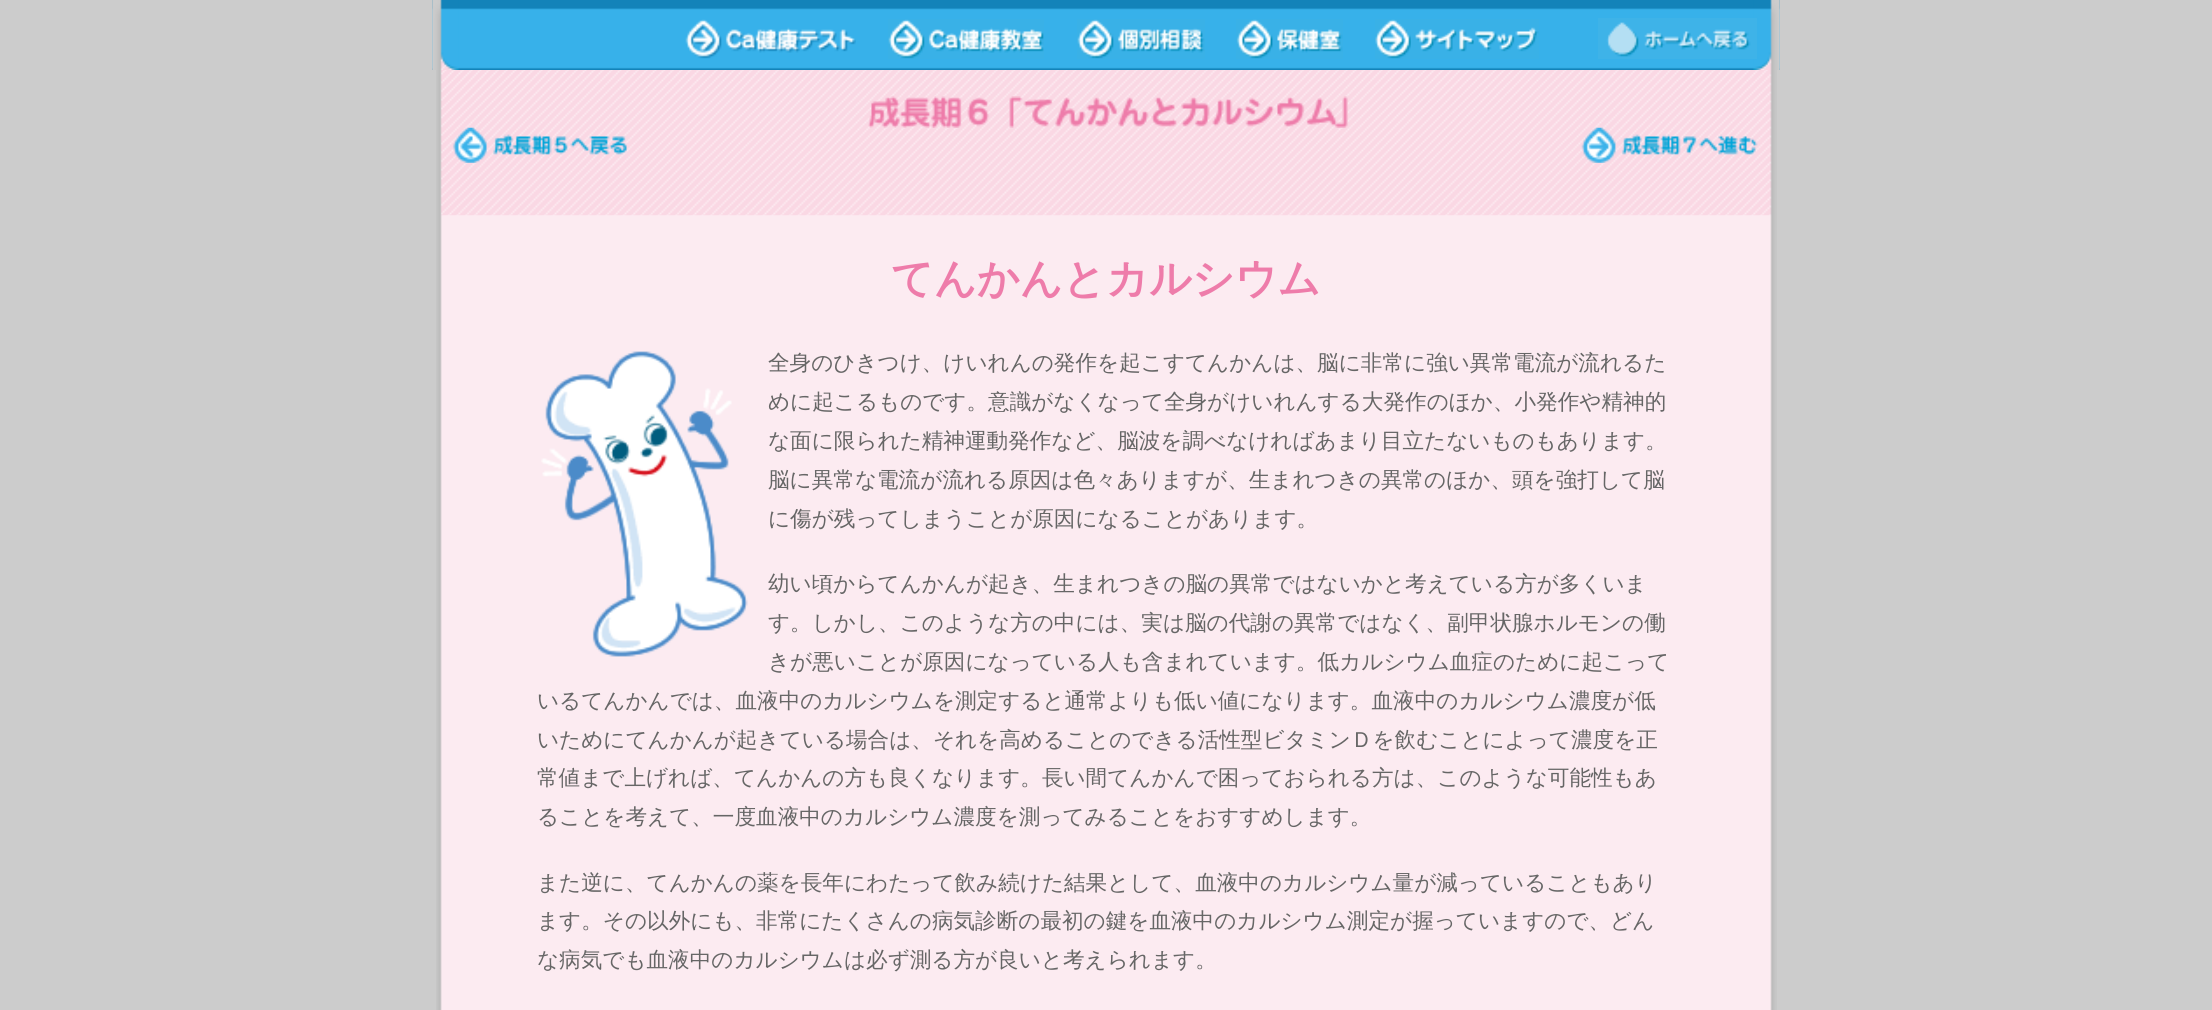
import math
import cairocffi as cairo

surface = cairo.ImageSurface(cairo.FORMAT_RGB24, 2212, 1010)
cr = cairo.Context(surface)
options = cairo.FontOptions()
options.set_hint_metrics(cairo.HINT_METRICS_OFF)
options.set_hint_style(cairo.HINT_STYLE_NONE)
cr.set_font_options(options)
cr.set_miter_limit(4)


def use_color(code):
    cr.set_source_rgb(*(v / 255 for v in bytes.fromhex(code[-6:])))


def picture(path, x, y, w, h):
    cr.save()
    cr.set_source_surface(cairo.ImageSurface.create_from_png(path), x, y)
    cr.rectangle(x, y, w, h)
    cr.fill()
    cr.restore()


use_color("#cccccc")
cr.paint()
picture("img1.png", 436, 70, 1341, 940)
picture("img2.png", 432, 0, 1348, 70)
picture("img3.png", 432, 0, 27, 70)
picture("img4.png", 1753, 0, 27, 70)
picture("img5.png", 685, 19, 171, 40)
picture("img6.png", 888, 19, 156, 40)
picture("img7.png", 1077, 19, 128, 40)
picture("img8.png", 1236, 19, 107, 40)
picture("img9.png", 1375, 19, 164, 40)
picture("img10.png", 1598, 18, 159, 41)
picture("img11.png", 441, 70, 1331, 146)
picture("img12.png", 868, 96, 480, 32)
picture("img13.png", 452, 127, 175, 36)
picture("img14.png", 1581, 127, 177, 36)
cr.select_font_face("WenQuanYi Zen Hei", cairo.FONT_SLANT_NORMAL, cairo.FONT_WEIGHT_BOLD)
cr.set_font_size(42)
use_color("#ee7caa")
cr.move_to(891, 293)
cr.show_text("てんかんとカルシウム")
picture("img15.png", 541, 351, 207, 306)
cr.select_font_face("WenQuanYi Zen Hei Medium")
cr.set_font_size(21.6)
use_color("#666666")
cr.move_to(768, 370)
cr.show_text("全身のひきつけ、けいれんの発作を起こすてんかんは、脳に非常に強い異常電流が流れるた")
cr.move_to(768, 409)
cr.show_text("めに起こるものです。意識がなくなって全身がけいれんする大発作のほか、小発作や精神的")
cr.move_to(768, 448)
cr.show_text("な面に限られた精神運動発作など、脳波を調べなければあまり目立たないものもあります。")
cr.move_to(768, 487)
cr.show_text("脳に異常な電流が流れる原因は色々ありますが、生まれつきの異常のほか、頭を強打して脳")
cr.move_to(768, 526)
cr.show_text("に傷が残ってしまうことが原因になることがあります。")
cr.move_to(768, 591)
cr.show_text("幼い頃からてんかんが起き、生まれつきの脳の異常ではないかと考えている方が多くいま")
cr.move_to(768, 630)
cr.show_text("す。しかし、このような方の中には、実は脳の代謝の異常ではなく、副甲状腺ホルモンの働")
cr.move_to(768, 669)
cr.show_text("きが悪いことが原因になっている人も含まれています。低カルシウム血症のために起こって")
cr.move_to(537, 708)
cr.show_text("いるてんかんでは、血液中のカルシウムを測定すると通常よりも低い値になります。血液中のカルシウム濃度が低")
cr.move_to(537, 747)
cr.show_text("いためにてんかんが起きている場合は、それを高めることのできる活性型ビタミンＤを飲むことによって濃度を正")
cr.move_to(537, 785)
cr.show_text("常値まで上げれば、てんかんの方も良くなります。長い間てんかんで困っておられる方は、このような可能性もあ")
cr.move_to(537, 824)
cr.show_text("ることを考えて、一度血液中のカルシウム濃度を測ってみることをおすすめします。")
cr.move_to(537, 890)
cr.show_text("また逆に、てんかんの薬を長年にわたって飲み続けた結果として、血液中のカルシウム量が減っていることもあり")
cr.move_to(537, 928)
cr.show_text("ます。その以外にも、非常にたくさんの病気診断の最初の鍵を血液中のカルシウム測定が握っていますので、どん")
cr.move_to(537, 967)
cr.show_text("な病気でも血液中のカルシウムは必ず測る方が良いと考えられます。")
surface.write_to_png("result.png")
